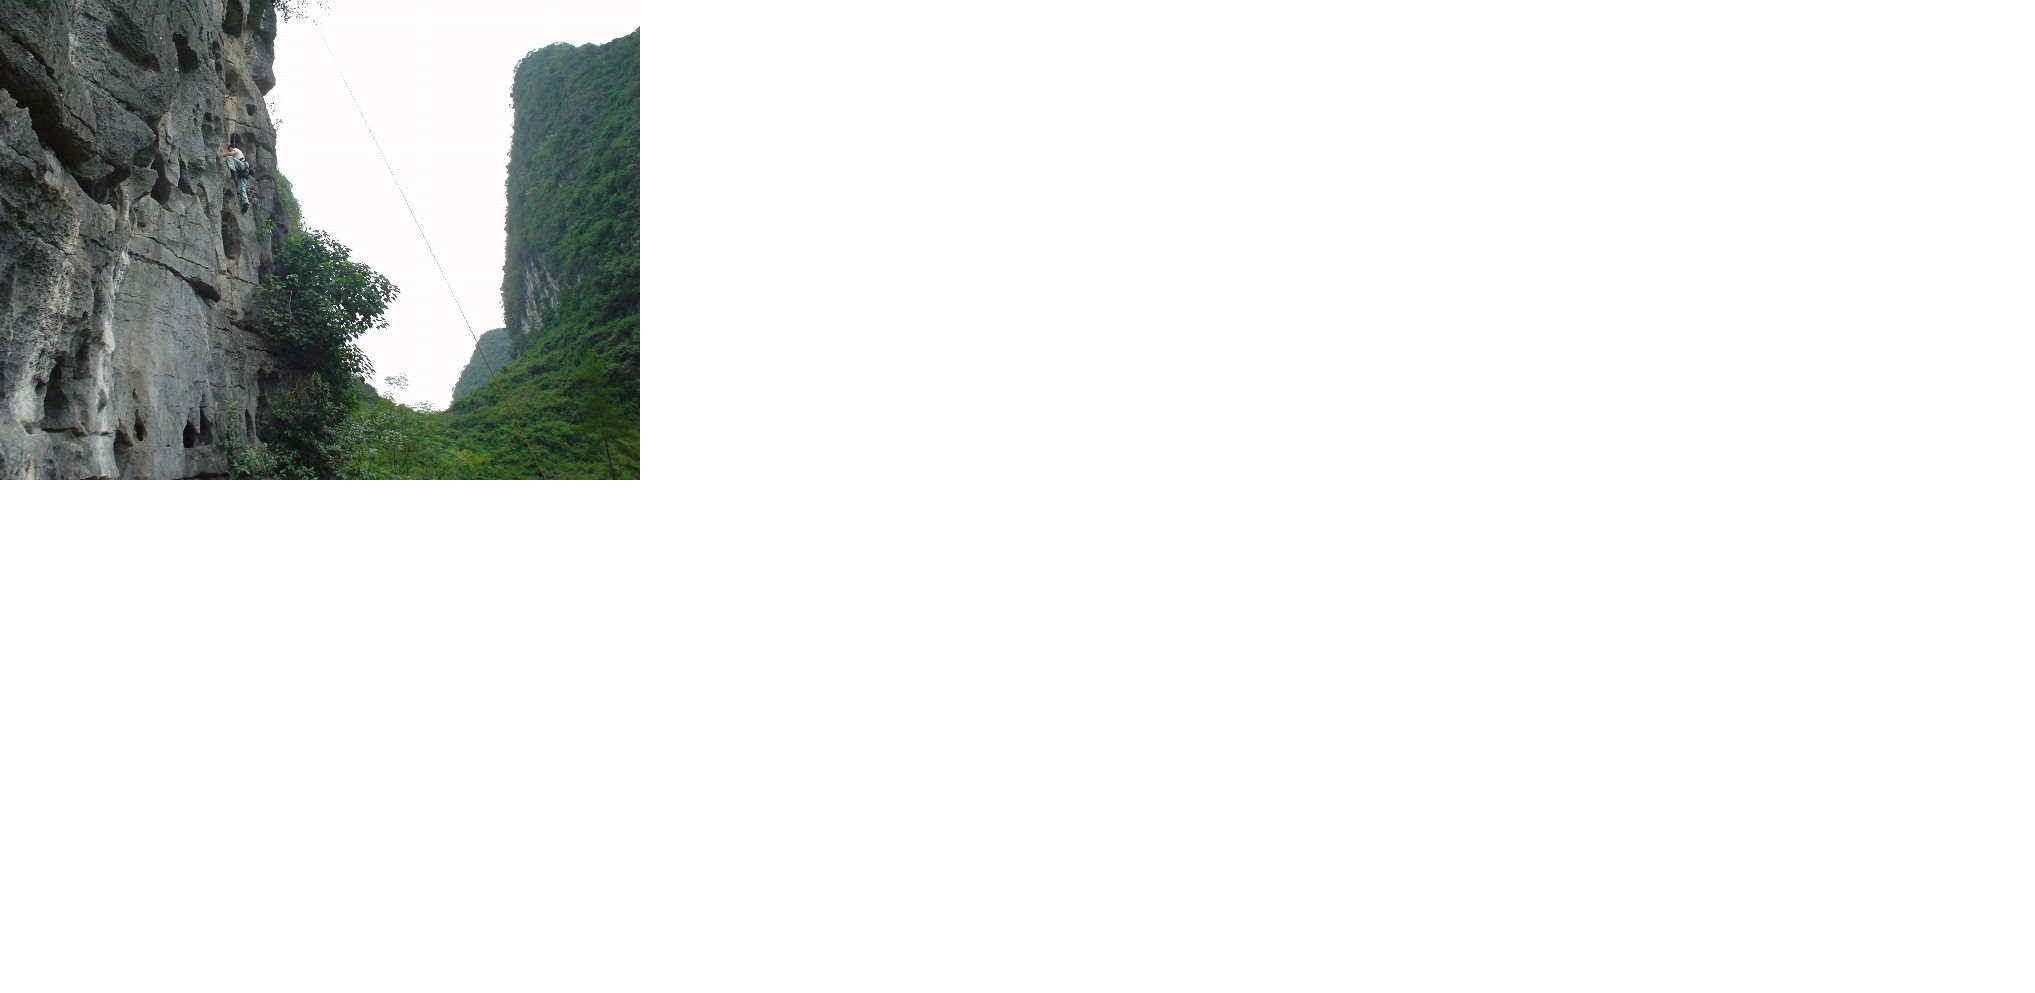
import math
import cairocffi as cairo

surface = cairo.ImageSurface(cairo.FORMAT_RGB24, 2035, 993)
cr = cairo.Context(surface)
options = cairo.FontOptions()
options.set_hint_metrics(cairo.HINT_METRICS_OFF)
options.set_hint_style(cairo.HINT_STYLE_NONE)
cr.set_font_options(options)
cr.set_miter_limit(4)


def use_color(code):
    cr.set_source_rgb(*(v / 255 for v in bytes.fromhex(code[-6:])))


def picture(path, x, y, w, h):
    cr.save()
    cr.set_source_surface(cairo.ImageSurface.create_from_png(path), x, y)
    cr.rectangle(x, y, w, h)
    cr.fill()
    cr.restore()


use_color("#ffffff")
cr.paint()
picture("img1.png", 0, 0, 640, 480)
surface.write_to_png("result.png")
